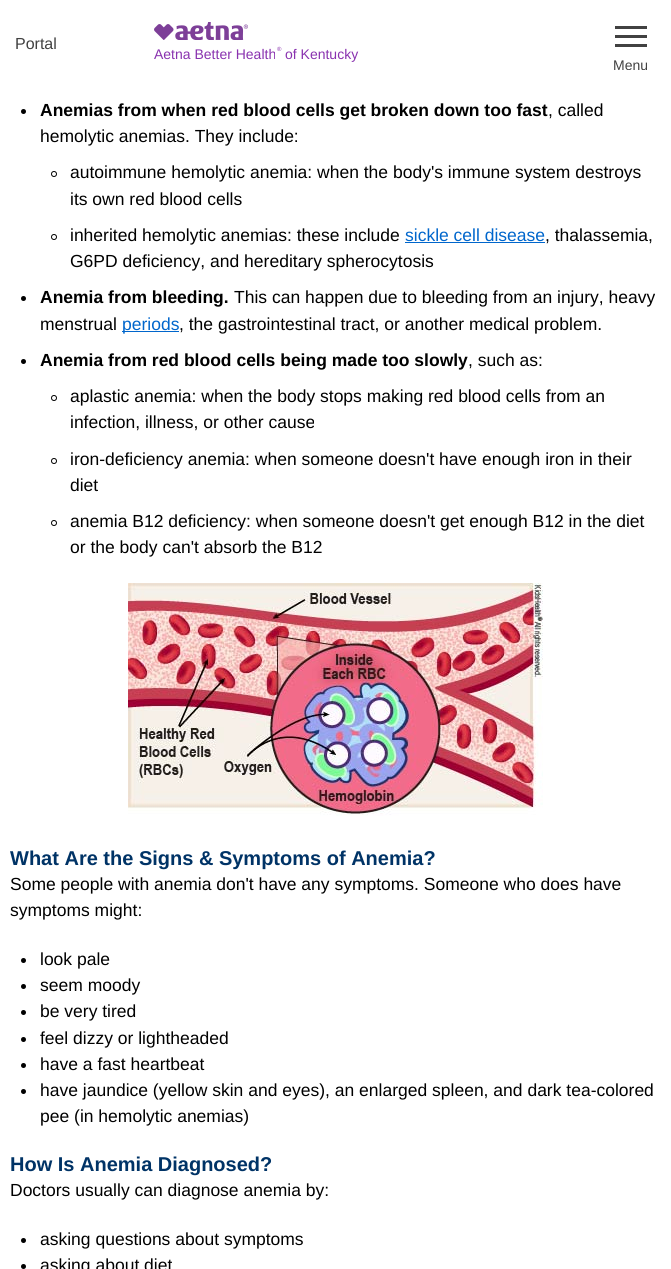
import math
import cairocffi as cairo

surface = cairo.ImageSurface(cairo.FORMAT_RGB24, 671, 1269)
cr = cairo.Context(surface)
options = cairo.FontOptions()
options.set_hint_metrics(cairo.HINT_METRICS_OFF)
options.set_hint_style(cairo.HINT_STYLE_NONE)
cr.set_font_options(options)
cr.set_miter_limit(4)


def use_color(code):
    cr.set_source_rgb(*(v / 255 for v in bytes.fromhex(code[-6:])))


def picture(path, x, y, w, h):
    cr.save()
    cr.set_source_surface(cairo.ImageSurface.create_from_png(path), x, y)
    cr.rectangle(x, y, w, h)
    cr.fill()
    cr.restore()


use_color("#ffffff")
cr.paint()
cr.select_font_face("Liberation Sans")
cr.set_font_size(16)
use_color("#414141")
cr.move_to(15, 49)
cr.show_text("Portal")
picture("img1.png", 154, 22, 94, 18)
cr.set_font_size(14)
use_color("#8932af")
cr.move_to(154, 59)
cr.show_text("Aetna Better Health")
cr.set_font_size(6)
cr.move_to(277, 51)
cr.show_text("®")
cr.set_font_size(14)
cr.move_to(285, 59)
cr.show_text("of Kentucky")
use_color("#414141")
cr.rectangle(615, 35, 32, 3)
cr.fill()
cr.rectangle(615, 26, 32, 3)
cr.fill()
cr.rectangle(615, 44, 32, 3)
cr.fill()
cr.save()
cr.rectangle(609, 18, 47, 52)
cr.clip()
cr.move_to(613, 70)
cr.show_text("Menu")
cr.restore()
use_color("#000000")
cr.new_path()
cr.arc(23.5, 111.5, 2.5, 0, 2 * math.pi)
cr.fill()
cr.select_font_face("Liberation Sans", cairo.FONT_SLANT_NORMAL, cairo.FONT_WEIGHT_BOLD)
cr.set_font_size(17.5)
cr.move_to(40, 116)
cr.show_text("Anemias from when red blood cells get broken down too fast")
cr.select_font_face("Liberation Sans")
cr.move_to(548, 116)
cr.show_text(", called")
cr.move_to(40, 142)
cr.show_text("hemolytic anemias. They include:")
cr.new_path()
cr.arc(54, 174, 2.5, 0, 2 * math.pi)
cr.set_line_width(1)
cr.stroke()
cr.move_to(70, 178)
cr.show_text("autoimmune hemolytic anemia: when the body's immune system destroys")
cr.move_to(70, 205)
cr.show_text("its own red blood cells")
cr.new_path()
cr.arc(54, 237, 2.5, 0, 2 * math.pi)
cr.stroke()
cr.move_to(70, 241)
cr.show_text("inherited hemolytic anemias: these include")
use_color("#0066cc")
cr.move_to(405, 241)
cr.show_text("sickle cell disease")
cr.rectangle(405, 242, 140, 1)
cr.fill()
use_color("#000000")
cr.move_to(545, 241)
cr.show_text(", thalassemia,")
cr.move_to(70, 267)
cr.show_text("G6PD deficiency, and hereditary spherocytosis")
cr.new_path()
cr.arc(23.5, 298.5, 2.5, 0, 2 * math.pi)
cr.fill()
cr.select_font_face("Liberation Sans", cairo.FONT_SLANT_NORMAL, cairo.FONT_WEIGHT_BOLD)
cr.move_to(40, 303)
cr.show_text("Anemia from bleeding.")
cr.select_font_face("Liberation Sans")
cr.move_to(234, 303)
cr.show_text("This can happen due to bleeding from an injury, heavy")
cr.move_to(40, 330)
cr.show_text("menstrual")
use_color("#0066cc")
cr.rectangle(122, 331, 57, 1)
cr.fill()
cr.move_to(122, 330)
cr.show_text("periods")
use_color("#000000")
cr.move_to(179, 330)
cr.show_text(", the gastrointestinal tract, or another medical problem.")
cr.new_path()
cr.arc(23.5, 361.5, 2.5, 0, 2 * math.pi)
cr.fill()
cr.select_font_face("Liberation Sans", cairo.FONT_SLANT_NORMAL, cairo.FONT_WEIGHT_BOLD)
cr.move_to(40, 366)
cr.show_text("Anemia from red blood cells being made too slowly")
cr.select_font_face("Liberation Sans")
cr.move_to(468, 366)
cr.show_text(", such as:")
cr.new_path()
cr.arc(54, 398, 2.5, 0, 2 * math.pi)
cr.stroke()
cr.move_to(70, 402)
cr.show_text("aplastic anemia: when the body stops making red blood cells from an")
cr.move_to(70, 428)
cr.show_text("infection, illness, or other cause")
cr.new_path()
cr.arc(54, 461, 2.5, 0, 2 * math.pi)
cr.stroke()
cr.move_to(70, 465)
cr.show_text("iron-deficiency anemia: when someone doesn't have enough iron in their")
cr.move_to(70, 491)
cr.show_text("diet")
cr.new_path()
cr.arc(54, 523, 2.5, 0, 2 * math.pi)
cr.stroke()
cr.move_to(70, 527)
cr.show_text("anemia B12 deficiency: when someone doesn't get enough B12 in the diet")
cr.move_to(70, 553)
cr.show_text("or the body can't absorb the B12")
picture("img2.png", 128, 583, 415, 233)
cr.select_font_face("Liberation Sans", cairo.FONT_SLANT_NORMAL, cairo.FONT_WEIGHT_BOLD)
cr.set_font_size(20)
use_color("#003366")
cr.move_to(10, 865)
cr.show_text("What Are the Signs & Symptoms of Anemia?")
cr.select_font_face("Liberation Sans")
cr.set_font_size(17.5)
use_color("#000000")
cr.move_to(10, 890)
cr.show_text("Some people with anemia don't have any symptoms. Someone who does have")
cr.move_to(10, 916)
cr.show_text("symptoms might:")
cr.new_path()
cr.arc(23.5, 960.5, 2.5, 0, 2 * math.pi)
cr.fill()
cr.move_to(40, 965)
cr.show_text("look pale")
cr.new_path()
cr.arc(23.5, 986.5, 2.5, 0, 2 * math.pi)
cr.fill()
cr.move_to(40, 991)
cr.show_text("seem moody")
cr.new_path()
cr.arc(23.5, 1012.5, 2.5, 0, 2 * math.pi)
cr.fill()
cr.move_to(40, 1017)
cr.show_text("be very tired")
cr.new_path()
cr.arc(23.5, 1039.5, 2.5, 0, 2 * math.pi)
cr.fill()
cr.move_to(40, 1044)
cr.show_text("feel dizzy or lightheaded")
cr.new_path()
cr.arc(23.5, 1065.5, 2.5, 0, 2 * math.pi)
cr.fill()
cr.move_to(40, 1070)
cr.show_text("have a fast heartbeat")
cr.new_path()
cr.arc(23.5, 1091.5, 2.5, 0, 2 * math.pi)
cr.fill()
cr.move_to(40, 1096)
cr.show_text("have jaundice (yellow skin and eyes), an enlarged spleen, and dark tea-colored")
cr.move_to(40, 1122)
cr.show_text("pee (in hemolytic anemias)")
cr.select_font_face("Liberation Sans", cairo.FONT_SLANT_NORMAL, cairo.FONT_WEIGHT_BOLD)
cr.set_font_size(20)
use_color("#003366")
cr.move_to(10, 1171)
cr.show_text("How Is Anemia Diagnosed?")
cr.select_font_face("Liberation Sans")
cr.set_font_size(17.5)
use_color("#000000")
cr.move_to(10, 1196)
cr.show_text("Doctors usually can diagnose anemia by:")
cr.new_path()
cr.arc(23.5, 1240.5, 2.5, 0, 2 * math.pi)
cr.fill()
cr.move_to(40, 1245)
cr.show_text("asking questions about symptoms")
cr.new_path()
cr.arc(23.5, 1266.5, 2.5, 0, 2 * math.pi)
cr.fill()
cr.move_to(40, 1271)
cr.show_text("asking about diet")
surface.write_to_png("result.png")
